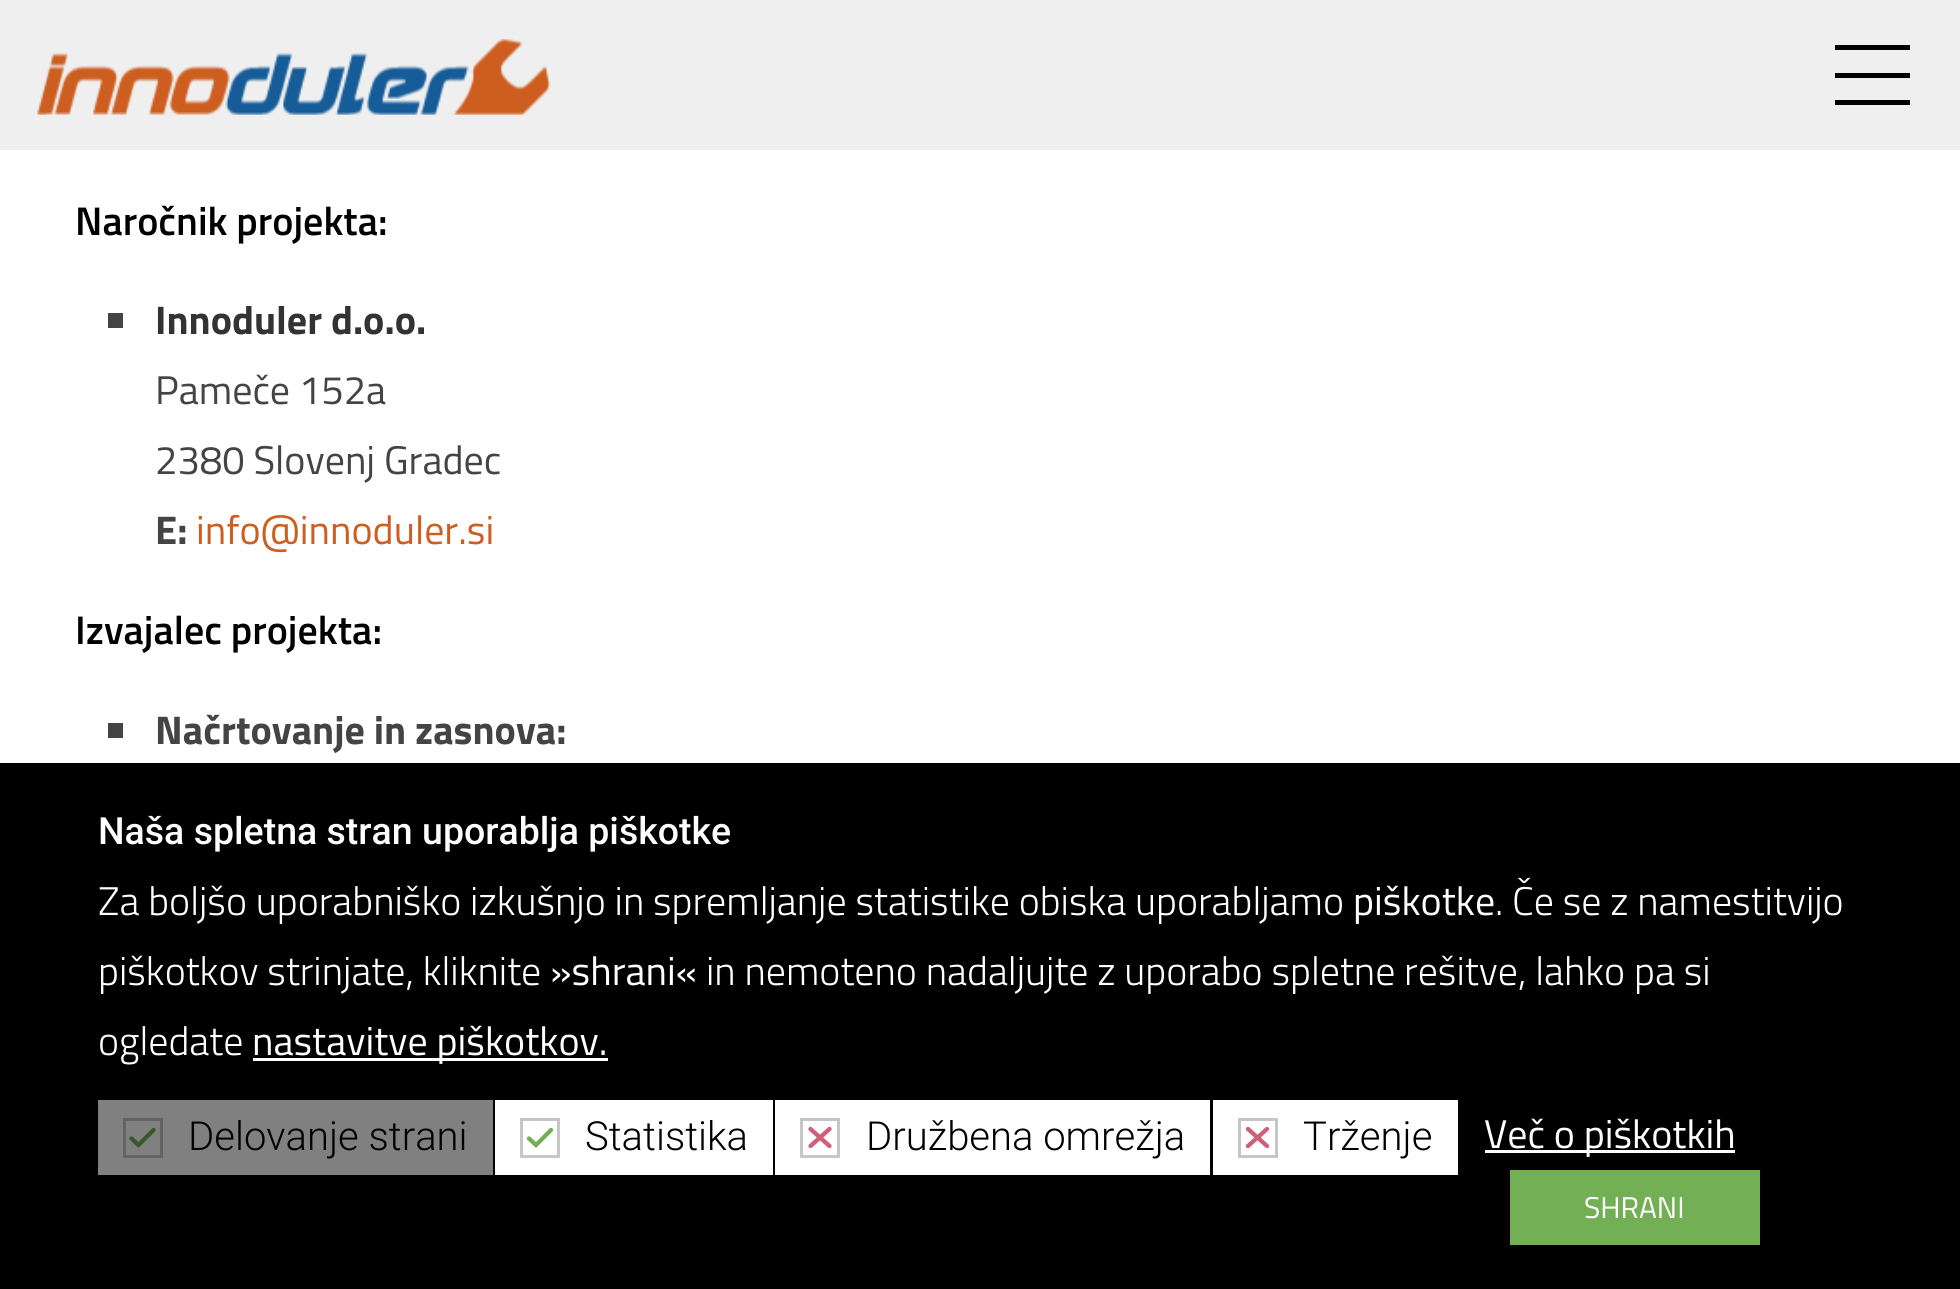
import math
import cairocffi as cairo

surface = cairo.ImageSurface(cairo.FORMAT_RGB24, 1960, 1289)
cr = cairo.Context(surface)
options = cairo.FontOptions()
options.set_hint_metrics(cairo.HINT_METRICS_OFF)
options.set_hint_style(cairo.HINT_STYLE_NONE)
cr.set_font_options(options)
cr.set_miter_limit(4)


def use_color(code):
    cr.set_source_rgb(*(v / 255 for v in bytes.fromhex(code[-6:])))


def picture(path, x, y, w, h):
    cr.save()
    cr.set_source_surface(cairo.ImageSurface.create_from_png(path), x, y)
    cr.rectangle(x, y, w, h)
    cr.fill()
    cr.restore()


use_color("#ffffff")
cr.paint()
use_color("#efefef")
cr.rectangle(0, 0, 1960, 150)
cr.fill()
picture("img1.png", 37, 38, 514, 77)
use_color("#000000")
cr.rectangle(1835, 45, 75, 5)
cr.fill()
cr.rectangle(1835, 73, 75, 5)
cr.fill()
cr.rectangle(1835, 100, 75, 5)
cr.fill()
cr.select_font_face("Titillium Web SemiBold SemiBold")
cr.set_font_size(40)
cr.move_to(75, 235)
cr.show_text("Naročnik projekta:")
use_color("#444444")
cr.rectangle(108, 313, 15, 15)
cr.fill()
cr.select_font_face("Titillium Web", cairo.FONT_SLANT_NORMAL, cairo.FONT_WEIGHT_BOLD)
use_color("#333333")
cr.move_to(155, 334)
cr.show_text("Innoduler d.o.o.")
cr.select_font_face("Titillium Web")
use_color("#444444")
cr.move_to(155, 404)
cr.show_text("Pameče 152a")
cr.move_to(155, 474)
cr.show_text("2380 Slovenj Gradec")
cr.select_font_face("Titillium Web", cairo.FONT_SLANT_NORMAL, cairo.FONT_WEIGHT_BOLD)
cr.move_to(155, 544)
cr.show_text("E:")
cr.select_font_face("Titillium Web")
use_color("#ce5e20")
cr.move_to(196, 544)
cr.show_text("info@innoduler.si")
cr.select_font_face("Titillium Web SemiBold SemiBold")
use_color("#000000")
cr.move_to(75, 644)
cr.show_text("Izvajalec projekta:")
use_color("#444444")
cr.rectangle(108, 723, 15, 15)
cr.fill()
cr.select_font_face("Titillium Web", cairo.FONT_SLANT_NORMAL, cairo.FONT_WEIGHT_BOLD)
cr.move_to(155, 744)
cr.show_text("Načrtovanje in zasnova:")
use_color("#000000")
cr.rectangle(0, 763, 1960, 526)
cr.fill()
cr.select_font_face("Roboto Medium")
cr.set_font_size(37.5)
use_color("#ffffff")
cr.move_to(98, 844)
cr.show_text("Naša spletna stran uporablja piškotke")
cr.select_font_face("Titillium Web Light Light")
cr.set_font_size(40)
cr.move_to(98, 915)
cr.show_text("Za boljšo uporabniško izkušnjo in spremljanje statistike obiska uporabljamo")
cr.select_font_face("Titillium Web")
cr.move_to(1353, 915)
cr.show_text("piškotke")
cr.select_font_face("Titillium Web Light Light")
cr.move_to(1495, 915)
cr.show_text(". Če se z namestitvijo")
cr.move_to(98, 985)
cr.show_text("piškotkov strinjate, kliknite")
cr.select_font_face("Titillium Web")
cr.move_to(550, 985)
cr.show_text("»shrani«")
cr.select_font_face("Titillium Web Light Light")
cr.move_to(706, 985)
cr.show_text("in nemoteno nadaljujte z uporabo spletne rešitve, lahko pa si")
cr.move_to(98, 1055)
cr.show_text("ogledate")
cr.rectangle(253, 1058, 355, 3)
cr.fill()
cr.select_font_face("Titillium Web")
cr.move_to(252, 1055)
cr.show_text("nastavitve piškotkov.")
use_color("#808080")
cr.rectangle(98, 1100, 395, 75)
cr.fill()
cr.new_path()
cr.move_to(153.5, 1130)
cr.line_to(138.5, 1145)
cr.line_to(131.5, 1138.5)
use_color("#3a582b")
cr.set_line_width(4.3)
cr.set_line_cap(cairo.LINE_CAP_ROUND)
cr.stroke()
cr.rectangle(124.5, 1119.5, 37, 37)
use_color("#636363")
cr.set_line_width(3)
cr.set_line_cap(cairo.LINE_CAP_BUTT)
cr.stroke()
cr.select_font_face("Roboto Light")
use_color("#000000")
cr.move_to(188, 1150)
cr.show_text("Delovanje strani")
use_color("#ffffff")
cr.rectangle(495, 1100, 278, 75)
cr.fill()
cr.new_path()
cr.move_to(551, 1130)
cr.line_to(536, 1145)
cr.line_to(529, 1138.5)
use_color("#73af55")
cr.set_line_width(4.3)
cr.set_line_cap(cairo.LINE_CAP_ROUND)
cr.stroke()
cr.rectangle(521.5, 1119.5, 37, 37)
use_color("#c6c6c6")
cr.set_line_width(3)
cr.set_line_cap(cairo.LINE_CAP_BUTT)
cr.stroke()
use_color("#000000")
cr.move_to(585, 1150)
cr.show_text("Statistika")
use_color("#ffffff")
cr.rectangle(775, 1100, 435, 75)
cr.fill()
cr.new_path()
cr.move_to(810.5, 1129)
cr.line_to(829.5, 1146)
cr.move_to(829.5, 1129)
cr.line_to(810.5, 1146)
use_color("#d06079")
cr.set_line_width(4.3)
cr.set_line_cap(cairo.LINE_CAP_ROUND)
cr.stroke()
cr.rectangle(801.5, 1119.5, 37, 37)
use_color("#c6c6c6")
cr.set_line_width(3)
cr.set_line_cap(cairo.LINE_CAP_BUTT)
cr.stroke()
use_color("#000000")
cr.move_to(866, 1150)
cr.show_text("Družbena omrežja")
use_color("#ffffff")
cr.rectangle(1213, 1100, 245, 75)
cr.fill()
cr.new_path()
cr.move_to(1248, 1129)
cr.line_to(1267, 1146)
cr.move_to(1267, 1129)
cr.line_to(1248, 1146)
use_color("#d06079")
cr.set_line_width(4.3)
cr.set_line_cap(cairo.LINE_CAP_ROUND)
cr.stroke()
cr.rectangle(1239.5, 1119.5, 37, 37)
use_color("#c6c6c6")
cr.set_line_width(3)
cr.set_line_cap(cairo.LINE_CAP_BUTT)
cr.stroke()
use_color("#000000")
cr.move_to(1303, 1150)
cr.show_text("Trženje")
use_color("#ffffff")
cr.rectangle(1485, 1150, 250, 3)
cr.fill()
cr.select_font_face("Titillium Web")
cr.move_to(1484, 1148)
cr.show_text("Več o piškotkih")
use_color("#73af55")
cr.rectangle(1510, 1170, 250, 75)
cr.fill()
cr.set_font_size(30)
use_color("#ffffff")
cr.move_to(1584, 1218)
cr.show_text("SHRANI")
surface.write_to_png("result.png")
